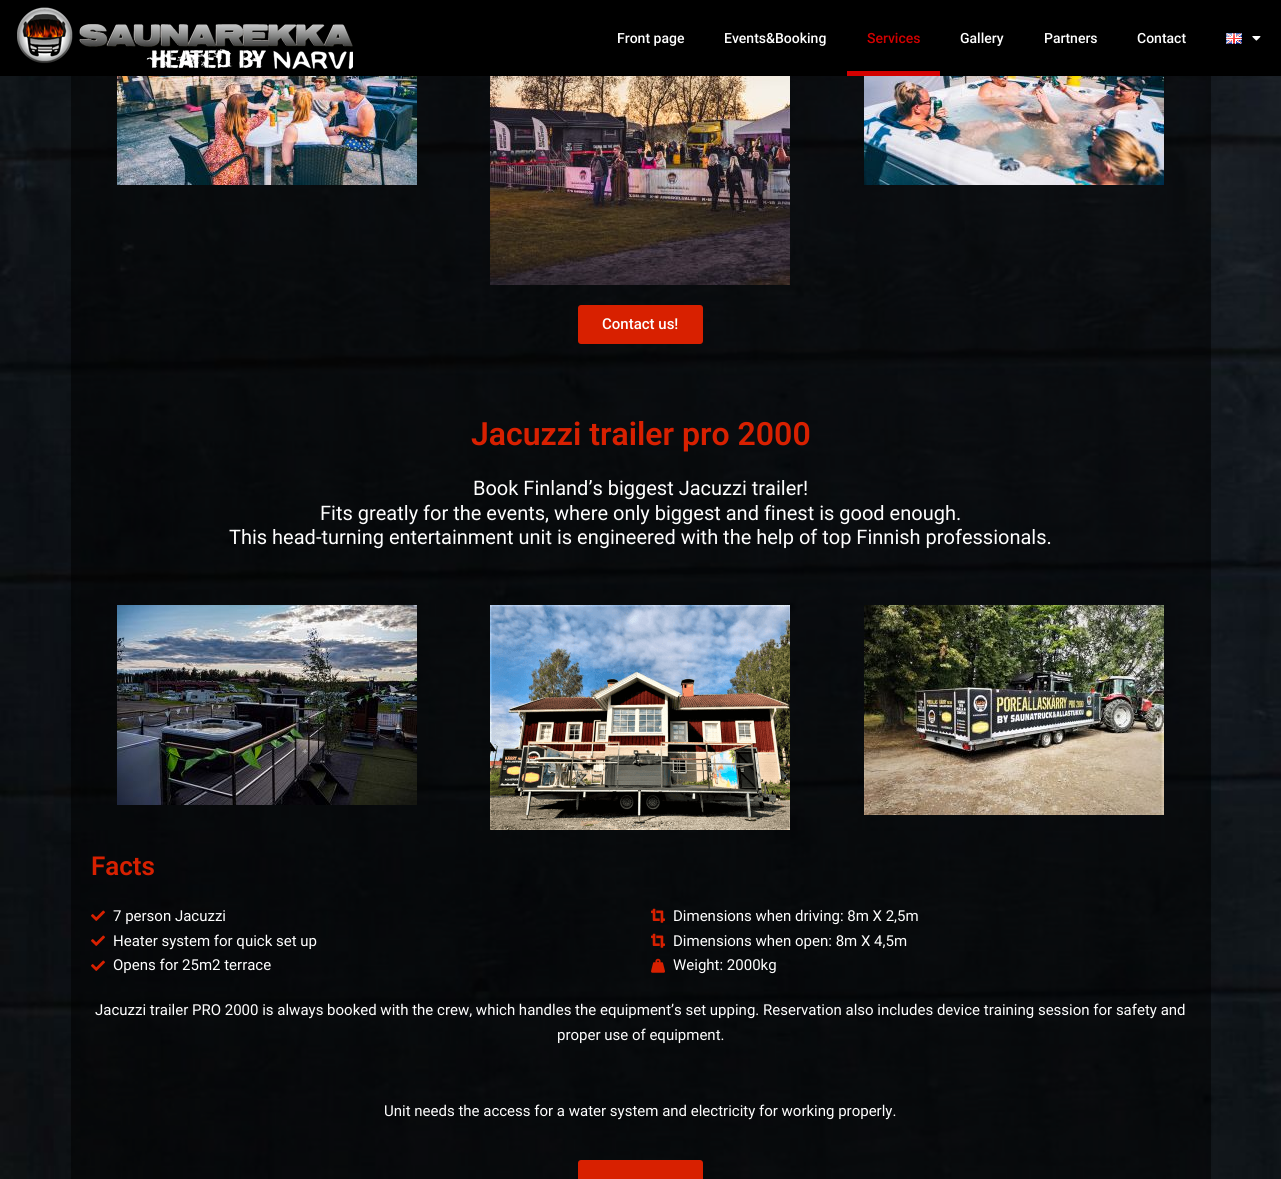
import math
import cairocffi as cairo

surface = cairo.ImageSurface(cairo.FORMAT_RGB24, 1281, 1179)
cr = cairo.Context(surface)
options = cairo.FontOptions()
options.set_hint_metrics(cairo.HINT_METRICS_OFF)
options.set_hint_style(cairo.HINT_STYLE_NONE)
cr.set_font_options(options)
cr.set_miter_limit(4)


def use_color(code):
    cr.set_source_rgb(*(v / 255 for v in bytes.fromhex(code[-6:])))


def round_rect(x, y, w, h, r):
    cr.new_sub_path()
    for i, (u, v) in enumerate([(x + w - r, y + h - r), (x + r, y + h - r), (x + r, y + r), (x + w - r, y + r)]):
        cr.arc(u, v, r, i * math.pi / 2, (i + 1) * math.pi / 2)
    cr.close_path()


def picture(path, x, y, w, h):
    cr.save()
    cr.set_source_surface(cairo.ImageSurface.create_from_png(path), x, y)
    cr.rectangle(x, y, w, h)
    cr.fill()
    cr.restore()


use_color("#ffffff")
cr.paint()
use_color("#000000")
cr.rectangle(0, 0, 1281, 76)
cr.fill()
picture("img1.png", 17, 7, 336, 63)
cr.select_font_face("Roboto Medium")
cr.set_font_size(14)
use_color("#ffffff")
cr.move_to(617, 43)
cr.show_text("Front page")
cr.move_to(724, 43)
cr.show_text("Events&Booking")
use_color("#d30000")
cr.move_to(867, 43)
cr.show_text("Services")
cr.rectangle(847, 71, 93, 5)
cr.fill()
use_color("#ffffff")
cr.move_to(960, 43)
cr.show_text("Gallery")
cr.move_to(1044, 43)
cr.show_text("Partners")
cr.move_to(1137, 43)
cr.show_text("Contact")
picture("img2.png", 1226, 33, 16, 11)
picture("img3.png", 1252, 36, 9, 5)
picture("img4.png", 0, 76, 1281, 1103)
cr.set_source_rgba(0, 0, 0, 0.5)
cr.rectangle(71, 76, 1140, 1103)
cr.fill()
picture("img5.png", 117, 76, 300, 109)
picture("img6.png", 490, 76, 300, 209)
picture("img7.png", 864, 76, 300, 109)
use_color("#d82000")
round_rect(578, 305, 125, 39, 3)
cr.fill()
cr.set_font_size(15)
use_color("#ffffff")
cr.move_to(602, 329)
cr.show_text("Contact us!")
cr.select_font_face("Roboto SemiBold")
cr.set_font_size(32)
use_color("#d82000")
cr.move_to(471, 445)
cr.show_text("Jacuzzi trailer pro 2000")
cr.select_font_face("Roboto")
cr.set_font_size(20)
use_color("#ffffff")
cr.move_to(473, 495)
cr.show_text("Book Finland’s biggest Jacuzzi trailer!")
cr.move_to(320, 520)
cr.show_text("Fits greatly for the events, where only biggest and finest is good enough.")
cr.move_to(229, 544)
cr.show_text("This head-turning entertainment unit is engineered with the help of top Finnish professionals.")
picture("img8.png", 117, 605, 300, 200)
picture("img9.png", 490, 605, 300, 225)
picture("img10.png", 864, 605, 300, 210)
cr.select_font_face("Roboto SemiBold")
cr.set_font_size(26)
use_color("#d82000")
cr.move_to(91, 875)
cr.show_text("Facts")
picture("img11.png", 91, 910, 14, 11)
cr.select_font_face("Roboto")
cr.set_font_size(15)
use_color("#ffffff")
cr.move_to(113, 921)
cr.show_text("7 person Jacuzzi")
picture("img12.png", 91, 935, 14, 11)
cr.move_to(113, 946)
cr.show_text("Heater system for quick set up")
picture("img13.png", 91, 960, 14, 11)
cr.move_to(113, 970)
cr.show_text("Opens for 25m2 terrace")
picture("img14.png", 651, 908, 14, 15)
cr.move_to(673, 921)
cr.show_text("Dimensions when driving: 8m X 2,5m")
picture("img15.png", 651, 933, 14, 15)
cr.move_to(673, 946)
cr.show_text("Dimensions when open: 8m X 4,5m")
picture("img16.png", 651, 958, 14, 15)
cr.move_to(673, 970)
cr.show_text("Weight: 2000kg")
cr.move_to(95, 1015)
cr.show_text("Jacuzzi trailer PRO 2000 is always booked with the crew, which handles the equipment’s set upping. Reservation also includes device training session for safety and")
cr.move_to(557, 1040)
cr.show_text("proper use of equipment.")
cr.move_to(384, 1116)
cr.show_text("Unit needs the access for a water system and electricity for working properly.")
use_color("#d82000")
round_rect(578, 1160, 125, 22, 3)
cr.fill()
surface.write_to_png("result.png")
